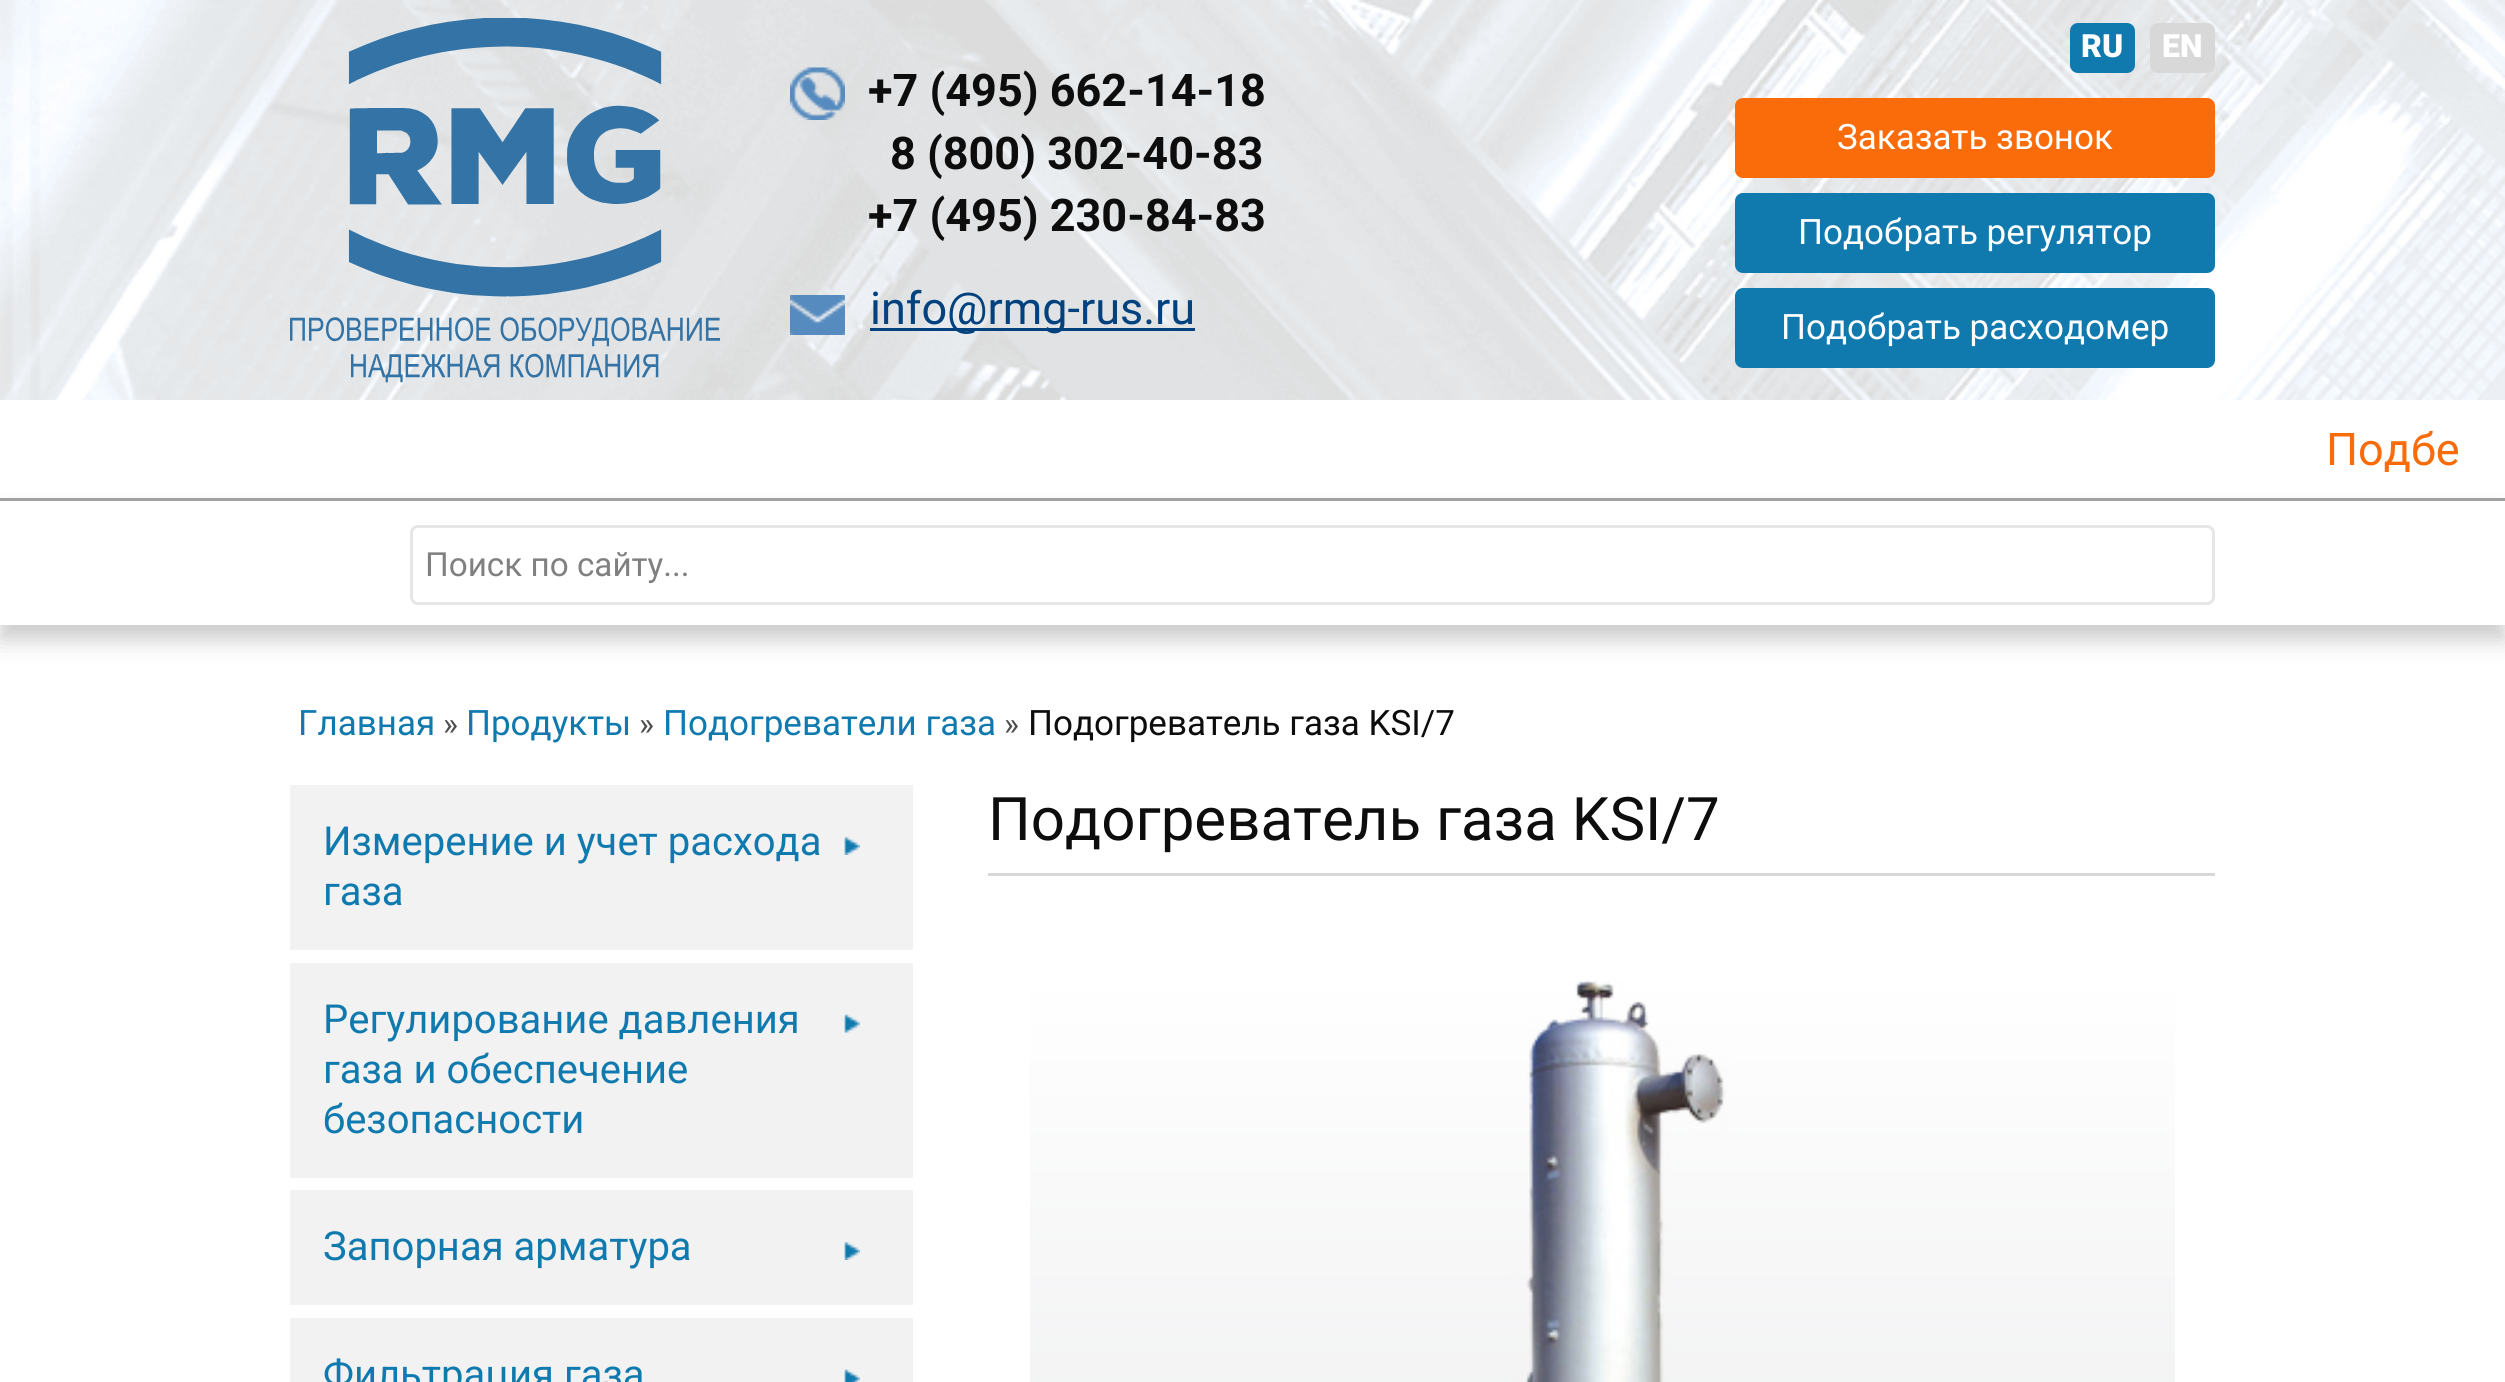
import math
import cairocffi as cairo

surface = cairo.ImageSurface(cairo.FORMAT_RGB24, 2505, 1382)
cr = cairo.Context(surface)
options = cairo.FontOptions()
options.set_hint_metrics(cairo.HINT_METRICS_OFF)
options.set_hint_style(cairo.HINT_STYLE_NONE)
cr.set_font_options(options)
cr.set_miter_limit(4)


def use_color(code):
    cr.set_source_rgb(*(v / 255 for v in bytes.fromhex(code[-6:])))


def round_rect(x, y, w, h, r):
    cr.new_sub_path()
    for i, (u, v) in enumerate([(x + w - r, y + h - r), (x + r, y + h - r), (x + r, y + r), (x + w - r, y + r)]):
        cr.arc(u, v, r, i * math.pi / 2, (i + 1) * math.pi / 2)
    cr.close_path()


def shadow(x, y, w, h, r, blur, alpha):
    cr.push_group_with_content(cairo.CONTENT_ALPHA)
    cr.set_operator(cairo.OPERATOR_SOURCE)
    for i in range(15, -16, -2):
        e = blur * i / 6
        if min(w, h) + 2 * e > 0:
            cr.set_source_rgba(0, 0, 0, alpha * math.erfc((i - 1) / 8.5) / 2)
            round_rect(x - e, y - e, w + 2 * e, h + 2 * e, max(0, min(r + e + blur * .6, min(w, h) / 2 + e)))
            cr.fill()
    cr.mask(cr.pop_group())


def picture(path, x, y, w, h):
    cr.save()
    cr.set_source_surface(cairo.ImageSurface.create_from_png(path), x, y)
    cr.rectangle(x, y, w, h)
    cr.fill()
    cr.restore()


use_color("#ffffff")
cr.paint()
picture("img1.png", 0, 0, 2505, 400)
picture("img2.png", 290, 18, 430, 365)
picture("img3.png", 790, 67, 55, 53)
cr.select_font_face("Roboto", cairo.FONT_SLANT_NORMAL, cairo.FONT_WEIGHT_BOLD)
cr.set_font_size(45)
use_color("#0d0d0d")
cr.move_to(868, 106)
cr.show_text("+7 (495) 662-14-18")
cr.move_to(890, 169)
cr.show_text("8 (800) 302-40-83")
cr.move_to(868, 231)
cr.show_text("+7 (495) 230-84-83")
picture("img4.png", 790, 295, 55, 40)
use_color("#00417e")
cr.rectangle(870, 328, 325, 3)
cr.fill()
cr.select_font_face("Roboto")
cr.move_to(870, 324)
cr.show_text("info@rmg-rus.ru")
use_color("#107aaf")
round_rect(2070, 23, 65, 50, 8)
cr.fill()
cr.select_font_face("Roboto Black")
cr.set_font_size(32)
use_color("#ffffff")
cr.move_to(2081, 57)
cr.show_text("RU")
use_color("#d8d8d8")
round_rect(2150, 23, 65, 50, 8)
cr.fill()
use_color("#ffffff")
cr.move_to(2162, 57)
cr.show_text("EN")
use_color("#fa6b0a")
round_rect(1735, 98, 480, 80, 8)
cr.fill()
cr.select_font_face("Roboto")
cr.set_font_size(35)
use_color("#ffffff")
cr.move_to(1837, 149)
cr.show_text("Заказать звонок")
use_color("#107aaf")
round_rect(1735, 193, 480, 80, 8)
cr.fill()
use_color("#ffffff")
cr.move_to(1798, 244)
cr.show_text("Подобрать регулятор")
use_color("#107aaf")
round_rect(1735, 288, 480, 80, 8)
cr.fill()
use_color("#ffffff")
cr.move_to(1781, 339)
cr.show_text("Подобрать расходомер")
cr.set_font_size(45)
use_color("#fa6b0a")
cr.move_to(2326, 465)
cr.show_text("Подбе")
use_color("#000000")
shadow(0, 513, 2505, 127, 0, 11, 0.2)
use_color("#ffffff")
cr.rectangle(0, 501, 2505, 124)
cr.fill()
use_color("#a1a1a1")
cr.rectangle(0, 498, 2505, 3)
cr.fill()
round_rect(411.5, 526.5, 1802, 77, 6.5)
use_color("#e6e6e6")
cr.set_line_width(3)
cr.stroke()
cr.set_font_size(33.25)
use_color("#808080")
cr.move_to(425, 576)
cr.show_text("Поиск по сайту...")
cr.set_font_size(35)
use_color("#107aaf")
cr.move_to(298, 735)
cr.show_text("Главная")
cr.set_font_size(32)
use_color("#4e4e4e")
cr.move_to(443, 735)
cr.show_text("»")
cr.set_font_size(35)
use_color("#107aaf")
cr.move_to(466, 735)
cr.show_text("Продукты")
cr.set_font_size(32)
use_color("#4e4e4e")
cr.move_to(639, 735)
cr.show_text("»")
cr.set_font_size(35)
use_color("#107aaf")
cr.move_to(663, 735)
cr.show_text("Подогреватели газа")
cr.set_font_size(32)
use_color("#4e4e4e")
cr.move_to(1004, 735)
cr.show_text("»")
cr.set_font_size(35)
use_color("#0d0d0d")
cr.move_to(1028, 735)
cr.show_text("Подогреватель газа KSI/7")
use_color("#f2f2f2")
cr.rectangle(290, 785, 623, 165)
cr.fill()
cr.set_font_size(40)
use_color("#107aaf")
cr.move_to(323, 855)
cr.show_text("Измерение и учет расхода")
picture("img5.png", 844, 836, 16, 19)
cr.move_to(323, 905)
cr.show_text("газа")
use_color("#f2f2f2")
cr.rectangle(290, 963, 623, 215)
cr.fill()
use_color("#107aaf")
cr.move_to(323, 1033)
cr.show_text("Регулирование давления")
picture("img6.png", 844, 1014, 16, 19)
cr.move_to(323, 1083)
cr.show_text("газа и обеспечение")
cr.move_to(323, 1133)
cr.show_text("безопасности")
use_color("#f2f2f2")
cr.rectangle(290, 1190, 623, 115)
cr.fill()
use_color("#107aaf")
cr.move_to(323, 1260)
cr.show_text("Запорная арматура")
picture("img5.png", 844, 1241, 16, 19)
use_color("#f2f2f2")
cr.rectangle(290, 1318, 623, 64)
cr.fill()
use_color("#107aaf")
cr.move_to(323, 1388)
cr.show_text("Фильтрация газа")
picture("img7.png", 844, 1369, 16, 13)
use_color("#d8d8d8")
cr.rectangle(988, 873, 1227, 3)
cr.fill()
cr.set_font_size(60)
use_color("#0d0d0d")
cr.move_to(988, 840)
cr.show_text("Подогреватель газа KSI/7")
picture("img8.png", 1030, 980, 1145, 402)
surface.write_to_png("result.png")
